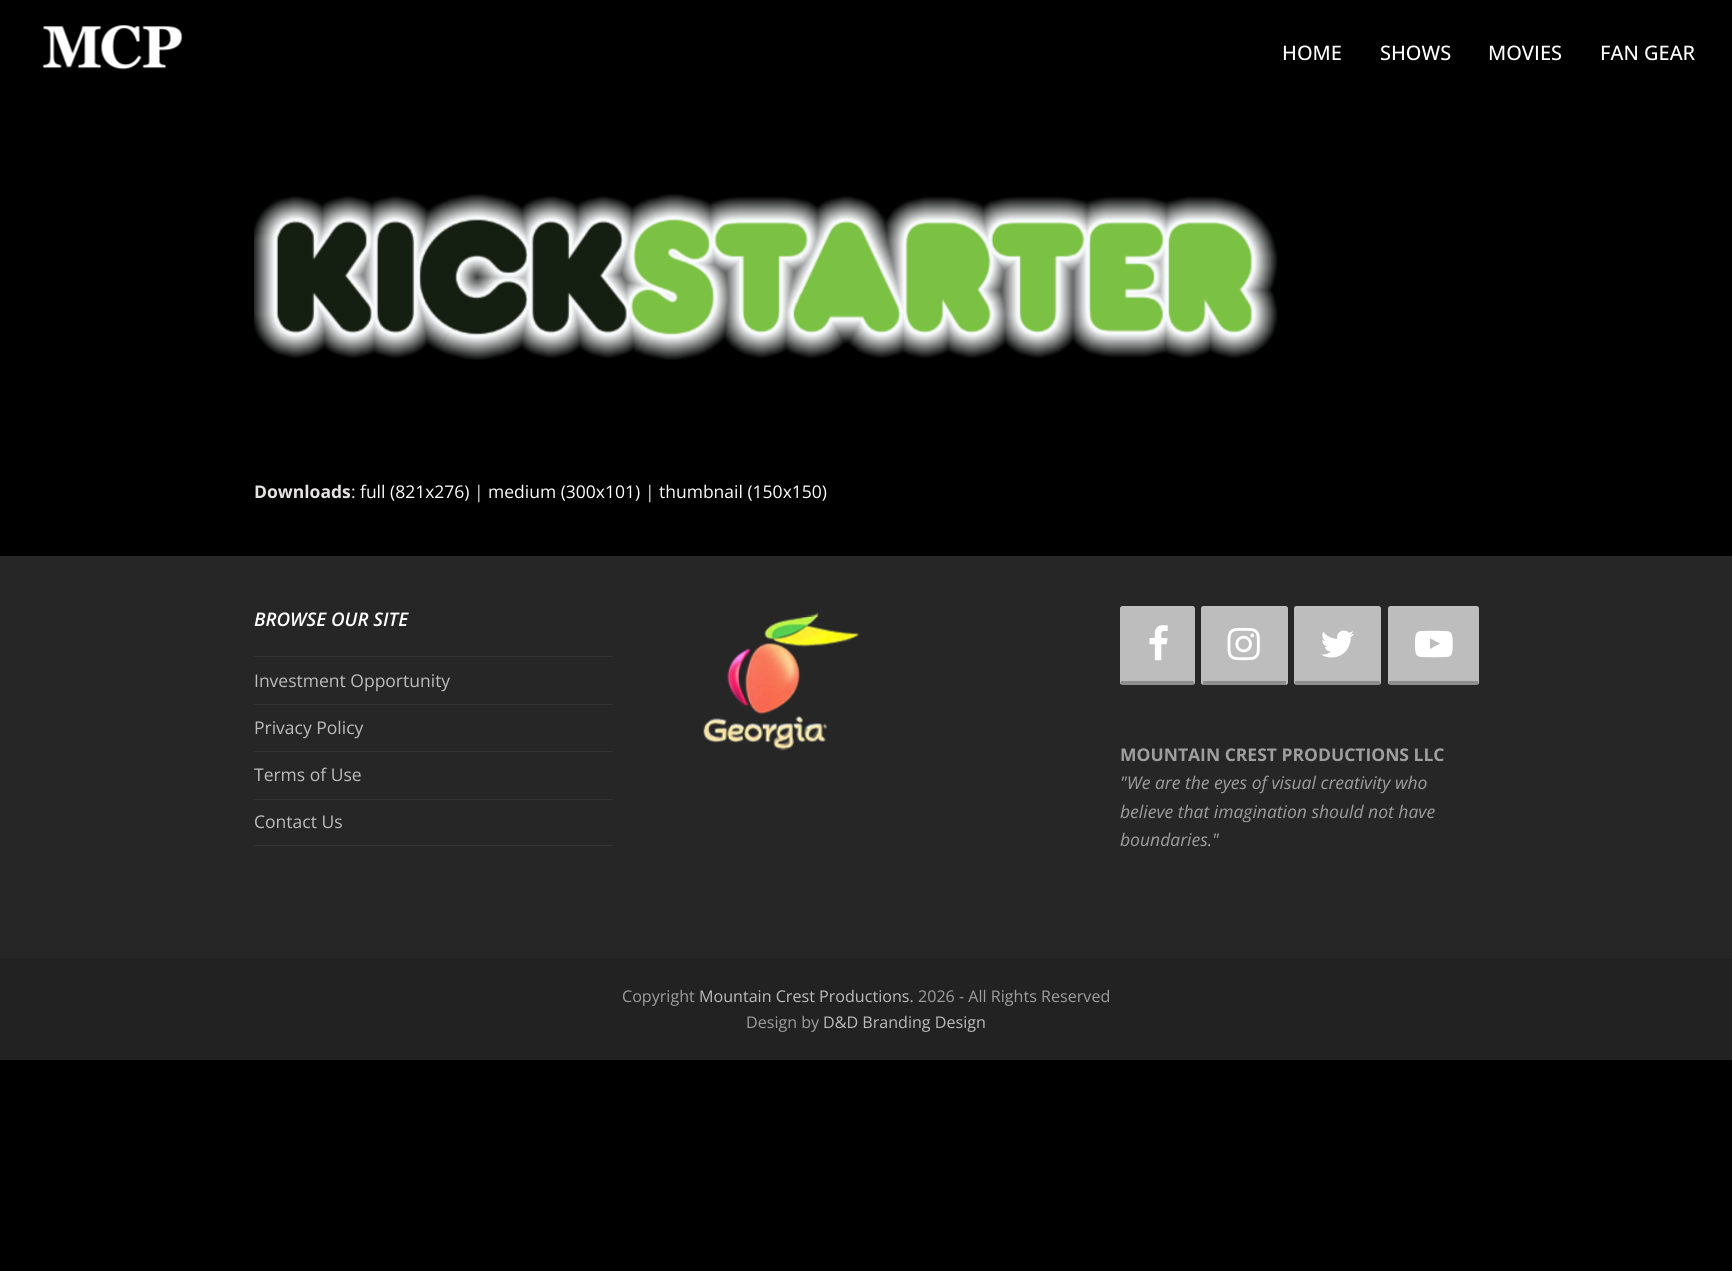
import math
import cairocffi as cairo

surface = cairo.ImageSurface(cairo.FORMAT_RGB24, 1732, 1271)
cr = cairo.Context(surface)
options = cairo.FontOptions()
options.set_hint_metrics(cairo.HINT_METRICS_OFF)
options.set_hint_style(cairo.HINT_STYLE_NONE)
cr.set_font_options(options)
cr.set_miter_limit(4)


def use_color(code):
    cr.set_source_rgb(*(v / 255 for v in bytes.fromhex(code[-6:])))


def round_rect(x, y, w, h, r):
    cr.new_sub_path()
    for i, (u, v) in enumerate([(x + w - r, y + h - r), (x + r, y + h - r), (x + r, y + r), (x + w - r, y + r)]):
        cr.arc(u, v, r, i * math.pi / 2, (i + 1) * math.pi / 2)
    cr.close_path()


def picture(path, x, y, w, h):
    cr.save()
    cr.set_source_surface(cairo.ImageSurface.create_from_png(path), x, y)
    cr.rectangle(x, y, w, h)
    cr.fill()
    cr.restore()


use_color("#000000")
cr.paint()
picture("img1.png", 42, 25, 141, 45)
cr.select_font_face("Open Sans Medium")
cr.set_font_size(20)
use_color("#ffffff")
cr.move_to(1282, 60)
cr.show_text("HOME")
cr.move_to(1380, 60)
cr.show_text("SHOWS")
cr.move_to(1488, 60)
cr.show_text("MOVIES")
cr.move_to(1600, 60)
cr.show_text("FAN GEAR")
picture("img2.png", 254, 194, 1024, 166)
cr.select_font_face("Open Sans", cairo.FONT_SLANT_NORMAL, cairo.FONT_WEIGHT_BOLD)
cr.set_font_size(17.5)
use_color("#e6e3e3")
cr.move_to(254, 498)
cr.show_text("Downloads")
cr.select_font_face("Open Sans")
cr.move_to(351, 498)
cr.show_text(":")
use_color("#ffffff")
cr.move_to(360, 498)
cr.show_text("full (821x276)")
use_color("#e6e3e3")
cr.move_to(474, 498)
cr.show_text("|")
use_color("#ffffff")
cr.move_to(488, 498)
cr.show_text("medium (300x101)")
use_color("#e6e3e3")
cr.move_to(645, 498)
cr.show_text("|")
use_color("#ffffff")
cr.move_to(659, 498)
cr.show_text("thumbnail (150x150)")
use_color("#262626")
cr.rectangle(0, 556, 1732, 403)
cr.fill()
cr.select_font_face("Open Sans SemiBold", cairo.FONT_SLANT_ITALIC)
cr.set_font_size(18.75)
use_color("#ffffff")
cr.move_to(254, 626)
cr.show_text("BROWSE OUR SITE")
use_color("#333333")
cr.rectangle(254, 656, 359, 1)
cr.fill()
cr.rectangle(254, 704, 359, 1)
cr.fill()
cr.select_font_face("Open Sans")
cr.set_font_size(17.5)
use_color("#bdbdbd")
cr.move_to(254, 687)
cr.show_text("Investment Opportunity")
use_color("#333333")
cr.rectangle(254, 751, 359, 1)
cr.fill()
use_color("#bdbdbd")
cr.move_to(254, 734)
cr.show_text("Privacy Policy")
use_color("#333333")
cr.rectangle(254, 799, 359, 1)
cr.fill()
use_color("#bdbdbd")
cr.move_to(254, 781)
cr.show_text("Terms of Use")
use_color("#333333")
cr.rectangle(254, 845, 359, 1)
cr.fill()
use_color("#bdbdbd")
cr.move_to(254, 828)
cr.show_text("Contact Us")
picture("img3.png", 703, 612, 156, 139)
round_rect(1120, 606, 75, 79, 2.5)
cr.fill()
cr.set_source_rgba(0, 0, 0, 0.25)
cr.rectangle(1121, 681, 73, 4)
cr.fill()
picture("img4.png", 1149, 625, 19, 36)
use_color("#bdbdbd")
round_rect(1201, 606, 87, 79, 2.5)
cr.fill()
cr.set_source_rgba(0, 0, 0, 0.25)
cr.rectangle(1203, 681, 83, 4)
cr.fill()
picture("img5.png", 1227, 627, 33, 34)
use_color("#bdbdbd")
round_rect(1294, 606, 87, 79, 2.5)
cr.fill()
cr.set_source_rgba(0, 0, 0, 0.25)
cr.rectangle(1295, 681, 85, 4)
cr.fill()
picture("img6.png", 1321, 630, 33, 28)
use_color("#bdbdbd")
round_rect(1388, 606, 91, 79, 2.5)
cr.fill()
cr.set_source_rgba(0, 0, 0, 0.25)
cr.rectangle(1389, 681, 89, 4)
cr.fill()
picture("img7.png", 1415, 630, 38, 28)
cr.select_font_face("Open Sans", cairo.FONT_SLANT_NORMAL, cairo.FONT_WEIGHT_BOLD)
use_color("#9e9e9e")
cr.move_to(1120, 761)
cr.show_text("MOUNTAIN CREST PRODUCTIONS LLC")
cr.select_font_face("Open Sans", cairo.FONT_SLANT_ITALIC)
cr.move_to(1120, 789)
cr.show_text("\"We are the eyes of visual creativity who")
cr.move_to(1120, 818)
cr.show_text("believe that imagination should not have")
cr.move_to(1120, 846)
cr.show_text("boundaries.\"")
use_color("#222222")
cr.rectangle(0, 959, 1732, 101)
cr.fill()
cr.select_font_face("Open Sans")
cr.set_font_size(16.1)
use_color("#9e9e9e")
cr.move_to(622, 1002)
cr.show_text("Copyright")
use_color("#bdbdbd")
cr.move_to(699, 1002)
cr.show_text("Mountain Crest Productions.")
use_color("#9e9e9e")
cr.move_to(918, 1002)
cr.show_text("2026 - All Rights Reserved")
cr.move_to(746, 1028)
cr.show_text("Design by")
use_color("#bdbdbd")
cr.move_to(823, 1028)
cr.show_text("D&D Branding Design")
surface.write_to_png("result.png")
